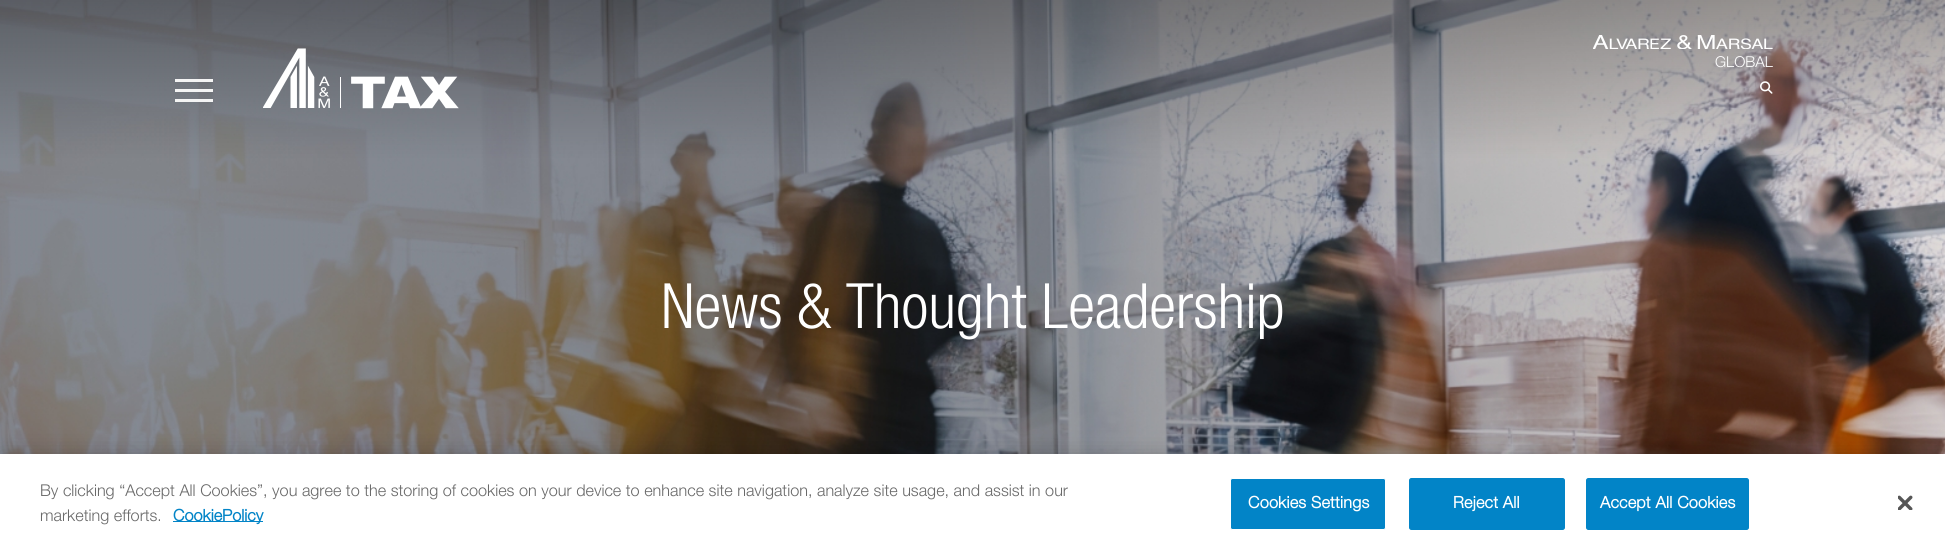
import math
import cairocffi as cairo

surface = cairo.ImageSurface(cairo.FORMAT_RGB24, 1945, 556)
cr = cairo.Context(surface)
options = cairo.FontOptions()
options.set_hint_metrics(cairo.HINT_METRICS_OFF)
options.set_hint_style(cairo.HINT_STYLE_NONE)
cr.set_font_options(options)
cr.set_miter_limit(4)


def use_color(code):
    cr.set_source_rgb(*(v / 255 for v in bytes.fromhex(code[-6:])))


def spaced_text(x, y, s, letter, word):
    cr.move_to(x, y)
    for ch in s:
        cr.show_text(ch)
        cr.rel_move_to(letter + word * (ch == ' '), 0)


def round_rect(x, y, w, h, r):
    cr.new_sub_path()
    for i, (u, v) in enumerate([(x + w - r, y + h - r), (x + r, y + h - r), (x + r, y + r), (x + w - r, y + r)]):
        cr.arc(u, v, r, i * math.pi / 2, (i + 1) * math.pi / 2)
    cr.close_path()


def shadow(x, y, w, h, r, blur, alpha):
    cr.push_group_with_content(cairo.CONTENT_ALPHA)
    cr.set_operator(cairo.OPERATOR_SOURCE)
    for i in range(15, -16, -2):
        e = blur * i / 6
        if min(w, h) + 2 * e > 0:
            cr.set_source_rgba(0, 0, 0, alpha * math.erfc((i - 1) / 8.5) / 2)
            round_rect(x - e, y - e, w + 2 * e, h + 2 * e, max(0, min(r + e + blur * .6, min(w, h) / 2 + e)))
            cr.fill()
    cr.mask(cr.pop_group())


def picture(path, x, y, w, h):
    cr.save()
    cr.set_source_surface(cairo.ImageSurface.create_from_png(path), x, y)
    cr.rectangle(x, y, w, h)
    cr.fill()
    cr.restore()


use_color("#ffffff")
cr.paint()
picture("img4.png", 0, 0, 1945, 454)
picture("img1.png", 263, 48, 196, 61)
picture("img2.png", 1593, 35, 180, 14)
cr.select_font_face("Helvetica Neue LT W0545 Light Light")
cr.set_font_size(15)
use_color("#ffffff")
cr.move_to(1715, 67)
cr.show_text("GLOBAL")
use_color("#f4f4f4")
cr.rectangle(175, 79, 38, 3)
cr.fill()
cr.rectangle(175, 89, 38, 3)
cr.fill()
cr.rectangle(175, 99, 38, 3)
cr.fill()
picture("img3.png", 1760, 81, 13, 13)
cr.select_font_face("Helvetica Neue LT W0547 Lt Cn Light")
cr.set_font_size(62.5)
use_color("#ffffff")
cr.move_to(661, 328)
cr.show_text("News & Thought Leadership")
use_color("#000000")
shadow(0, 454, 1945, 102, 0, 11, 0.2)
use_color("#ffffff")
cr.rectangle(0, 454, 1945, 102)
cr.fill()
cr.select_font_face("Helvetica Neue LT W0545 Light Light")
cr.set_font_size(16.25)
use_color("#696969")
cr.move_to(40, 496)
cr.show_text("By clicking “Accept All Cookies”, you agree to the storing of cookies on your device to enhance site navigation, analyze site usage, and assist in our")
cr.move_to(40, 521)
cr.show_text("marketing efforts.")
use_color("#0284c7")
cr.rectangle(173, 521, 90, 1)
cr.fill()
cr.select_font_face("Helvetica Neue LT W0545 Light", cairo.FONT_SLANT_NORMAL, cairo.FONT_WEIGHT_BOLD)
cr.move_to(173, 521)
cr.show_text("CookiePolicy")
round_rect(1230.5, 478.5, 155, 51, 2)
cr.fill_preserve()
use_color("#ffffff")
cr.set_line_width(1)
cr.stroke()
spaced_text(1248, 508, "Cookies Settings", 0.2, 0)
use_color("#0284c7")
round_rect(1409.5, 478.5, 155, 51, 2)
cr.fill_preserve()
cr.stroke()
use_color("#ffffff")
spaced_text(1453, 508, "Reject All", 0.2, 0)
use_color("#0284c7")
round_rect(1586.5, 478.5, 162, 51, 2)
cr.fill_preserve()
cr.stroke()
use_color("#ffffff")
spaced_text(1600, 508, "Accept All Cookies", 0.2, 0)
picture("img5.png", 1898, 495, 15, 15)
surface.write_to_png("result.png")
